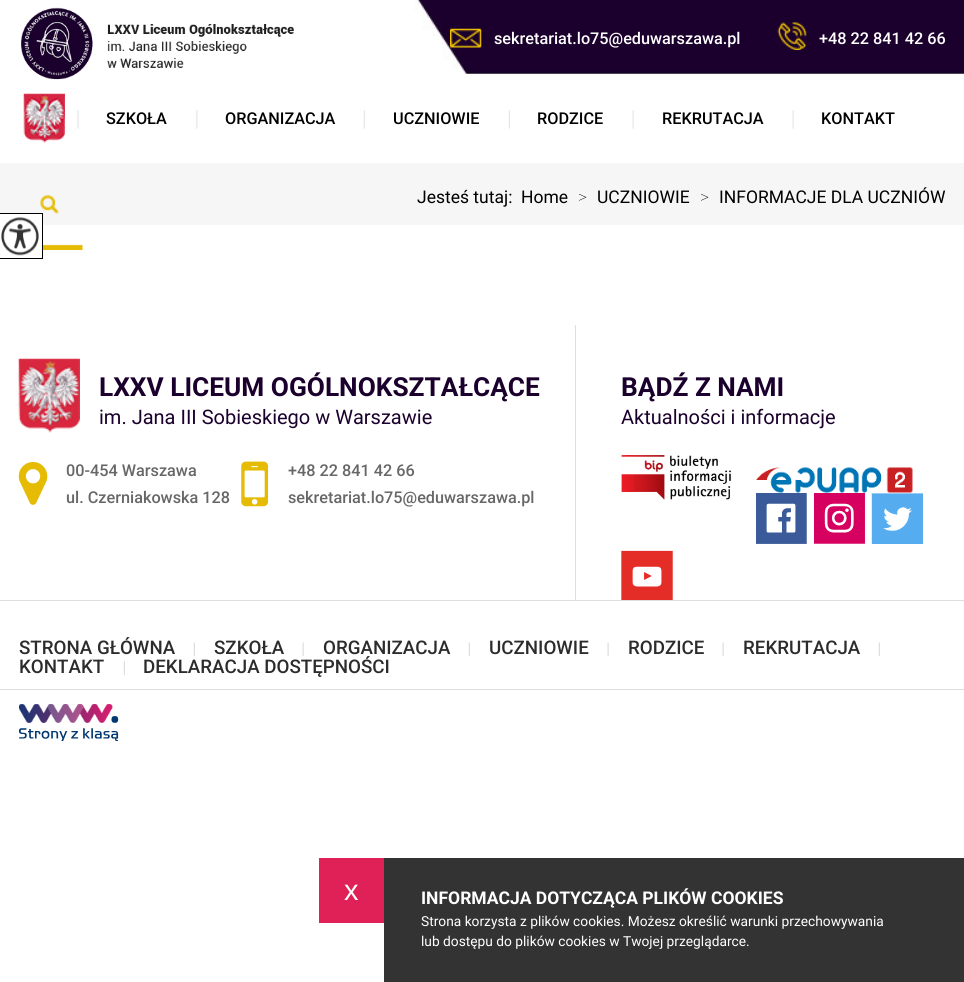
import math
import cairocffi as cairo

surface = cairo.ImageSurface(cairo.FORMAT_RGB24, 964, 982)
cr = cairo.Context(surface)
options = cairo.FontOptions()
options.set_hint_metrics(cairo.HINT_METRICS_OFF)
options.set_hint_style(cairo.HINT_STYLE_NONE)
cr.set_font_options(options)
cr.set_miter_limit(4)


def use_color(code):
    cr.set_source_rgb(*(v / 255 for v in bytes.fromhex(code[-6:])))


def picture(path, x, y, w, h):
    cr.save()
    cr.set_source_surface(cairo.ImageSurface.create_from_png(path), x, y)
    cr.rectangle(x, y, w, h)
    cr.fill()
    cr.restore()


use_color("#ffffff")
cr.paint()
picture("img1.png", 414, 0, 550, 74)
picture("img2.png", 21, 7, 273, 73)
picture("img3.png", 450, 28, 32, 20)
cr.select_font_face("Roboto Medium")
cr.set_font_size(16.25)
use_color("#ffffff")
cr.move_to(494, 44)
cr.show_text("sekretariat.lo75@eduwarszawa.pl")
picture("img4.png", 777, 22, 30, 28)
cr.move_to(819, 44)
cr.show_text("+48 22 841 42 66")
picture("img5.png", 23, 93, 42, 50)
picture("img6.png", 77, 110, 2, 19)
use_color("#000000")
cr.move_to(106, 124)
cr.show_text("SZKOŁA")
picture("img7.png", 196, 110, 2, 19)
cr.move_to(225, 124)
cr.show_text("ORGANIZACJA")
picture("img8.png", 363, 110, 2, 19)
cr.move_to(393, 124)
cr.show_text("UCZNIOWIE")
picture("img8.png", 508, 110, 2, 19)
cr.move_to(537, 124)
cr.show_text("RODZICE")
picture("img6.png", 632, 110, 2, 19)
cr.move_to(662, 124)
cr.show_text("REKRUTACJA")
picture("img6.png", 792, 110, 2, 19)
cr.move_to(821, 124)
cr.show_text("KONTAKT")
use_color("#f6f6f6")
cr.rectangle(0, 163, 964, 62)
cr.fill()
picture("img9.png", 39, 195, 44, 55)
cr.select_font_face("Roboto")
cr.set_font_size(17.5)
use_color("#000000")
cr.move_to(417, 203)
cr.show_text("Jesteś tutaj:")
cr.move_to(521, 203)
cr.show_text("Home")
cr.select_font_face("Roboto Thin")
cr.move_to(578, 203)
cr.show_text(">")
cr.select_font_face("Roboto")
cr.move_to(597, 203)
cr.show_text("UCZNIOWIE")
cr.select_font_face("Roboto Thin")
cr.move_to(700, 203)
cr.show_text(">")
cr.select_font_face("Roboto")
cr.move_to(719, 203)
cr.show_text("INFORMACJE DLA UCZNIÓW")
use_color("#ffffff")
cr.rectangle(0, 214, 42, 36)
cr.fill()
cr.rectangle(-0.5, 213.5, 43, 45)
use_color("#000000")
cr.set_line_width(1)
cr.stroke()
picture("img10.png", 1, 217, 38, 39)
use_color("#dedede")
cr.rectangle(575, 325, 1, 275)
cr.fill()
picture("img11.png", 18, 358, 62, 75)
cr.select_font_face("Roboto", cairo.FONT_SLANT_NORMAL, cairo.FONT_WEIGHT_BOLD)
cr.set_font_size(26.25)
use_color("#1b002d")
cr.move_to(99, 396)
cr.show_text("LXXV LICEUM OGÓLNOKSZTAŁCĄCE")
cr.select_font_face("Roboto")
cr.set_font_size(20)
cr.move_to(99, 424)
cr.show_text("im. Jana III Sobieskiego w Warszawie")
picture("img12.png", 18, 462, 30, 43)
cr.select_font_face("Roboto Medium")
cr.set_font_size(16.25)
use_color("#676767")
cr.move_to(66, 476)
cr.show_text("00-454 Warszawa")
cr.move_to(66, 503)
cr.show_text("ul. Czerniakowska 128")
picture("img13.png", 241, 461, 28, 46)
cr.move_to(288, 476)
cr.show_text("+48 22 841 42 66")
cr.move_to(288, 503)
cr.show_text("sekretariat.lo75@eduwarszawa.pl")
cr.select_font_face("Roboto", cairo.FONT_SLANT_NORMAL, cairo.FONT_WEIGHT_BOLD)
cr.set_font_size(26.25)
use_color("#1b002d")
cr.move_to(621, 396)
cr.show_text("BĄDŹ Z NAMI")
cr.select_font_face("Roboto")
cr.set_font_size(20)
cr.move_to(621, 424)
cr.show_text("Aktualności i informacje")
picture("img14.png", 621, 455, 111, 45)
picture("img15.png", 756, 467, 157, 26)
picture("img16.png", 756, 493, 51, 51)
picture("img17.png", 814, 493, 51, 51)
picture("img18.png", 871, 493, 52, 51)
picture("img19.png", 621, 550, 52, 50)
use_color("#dedede")
cr.rectangle(0, 600, 964, 1)
cr.fill()
cr.rectangle(0, 689, 964, 1)
cr.fill()
cr.select_font_face("Roboto Medium")
cr.set_font_size(18.75)
use_color("#2c2c2c")
cr.move_to(19, 654)
cr.show_text("STRONA GŁÓWNA")
picture("img20.png", 193, 642, 2, 15)
cr.move_to(214, 654)
cr.show_text("SZKOŁA")
picture("img21.png", 302, 642, 2, 15)
cr.move_to(323, 654)
cr.show_text("ORGANIZACJA")
picture("img20.png", 468, 642, 2, 15)
cr.move_to(489, 654)
cr.show_text("UCZNIOWIE")
picture("img21.png", 607, 642, 2, 15)
cr.move_to(628, 654)
cr.show_text("RODZICE")
picture("img21.png", 722, 642, 2, 15)
cr.move_to(743, 654)
cr.show_text("REKRUTACJA")
picture("img20.png", 878, 642, 2, 15)
cr.move_to(19, 673)
cr.show_text("KONTAKT")
picture("img22.png", 123, 661, 2, 14)
cr.move_to(143, 673)
cr.show_text("DEKLARACJA DOSTĘPNOŚCI")
picture("img23.png", 19, 704, 100, 37)
use_color("#333333")
cr.rectangle(384, 858, 580, 124)
cr.fill()
use_color("#df2157")
cr.rectangle(319, 858, 65, 65)
cr.fill()
cr.select_font_face("Liberation Sans")
cr.set_font_size(29)
use_color("#ffffff")
cr.move_to(344, 900)
cr.show_text("x")
cr.select_font_face("Roboto", cairo.FONT_SLANT_NORMAL, cairo.FONT_WEIGHT_BOLD)
cr.set_font_size(17.5)
cr.move_to(421, 904)
cr.show_text("INFORMACJA DOTYCZĄCA PLIKÓW COOKIES")
cr.select_font_face("Roboto")
cr.set_font_size(13.75)
cr.move_to(421, 926)
cr.show_text("Strona korzysta z plików cookies. Możesz określić warunki przechowywania")
cr.move_to(421, 946)
cr.show_text("lub dostępu do plików cookies w Twojej przeglądarce.")
surface.write_to_png("result.png")
